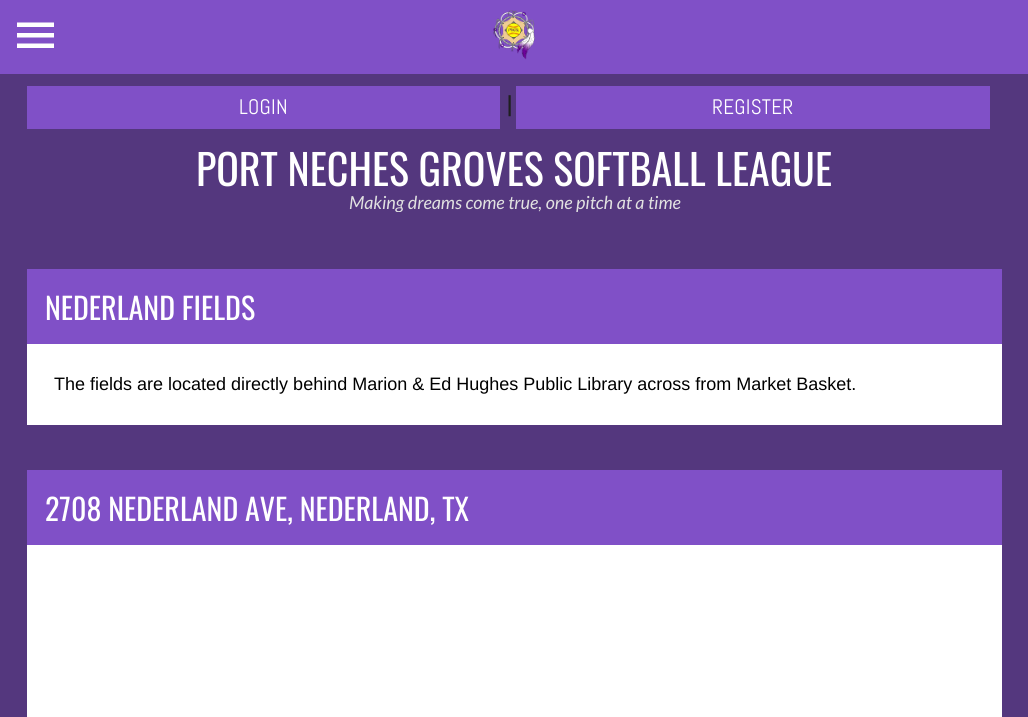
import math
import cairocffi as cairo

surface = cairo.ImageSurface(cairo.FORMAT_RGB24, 1028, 717)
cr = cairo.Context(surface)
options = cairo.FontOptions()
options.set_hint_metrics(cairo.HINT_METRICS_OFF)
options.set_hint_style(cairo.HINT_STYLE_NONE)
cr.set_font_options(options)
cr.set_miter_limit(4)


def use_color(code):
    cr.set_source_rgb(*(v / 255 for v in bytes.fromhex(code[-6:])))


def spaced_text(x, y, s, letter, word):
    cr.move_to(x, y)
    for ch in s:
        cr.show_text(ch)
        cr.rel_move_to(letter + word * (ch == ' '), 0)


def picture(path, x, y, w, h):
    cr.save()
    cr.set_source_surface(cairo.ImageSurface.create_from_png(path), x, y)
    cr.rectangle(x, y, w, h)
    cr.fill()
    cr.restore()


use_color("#54377e")
cr.paint()
use_color("#8050c7")
cr.rectangle(0, 0, 1028, 74)
cr.fill()
cr.save()
cr.rectangle(17, 17, 37, 37)
cr.clip()
use_color("#ffffff")
cr.new_path()
cr.move_to(16.5, 22.5)
cr.line_to(54, 22.5)
cr.line_to(54, 27)
cr.line_to(16.5, 27)
cr.close_path()
cr.move_to(16.5, 33)
cr.line_to(54, 33)
cr.line_to(54, 37.5)
cr.line_to(16.5, 37.5)
cr.close_path()
cr.move_to(16.5, 43.5)
cr.line_to(54, 43.5)
cr.line_to(54, 48)
cr.line_to(16.5, 48)
cr.close_path()
cr.fill()
cr.restore()
picture("img1.png", 493, 10, 42, 50)
cr.rectangle(27, 86, 473, 43)
cr.fill()
cr.select_font_face("Abel")
cr.set_font_size(21)
use_color("#ffffff")
spaced_text(239, 114, "LOGIN", 0.25, 0)
cr.select_font_face("Oswald")
cr.set_font_size(22)
use_color("#1f1f1f")
cr.move_to(507, 113)
cr.show_text("|")
use_color("#8050c7")
cr.rectangle(516, 86, 474, 43)
cr.fill()
cr.select_font_face("Abel")
cr.set_font_size(21)
use_color("#ffffff")
spaced_text(712, 114, "REGISTER", 0.25, 0)
cr.select_font_face("Oswald")
cr.set_font_size(42)
cr.move_to(196, 186)
cr.show_text("PORT NECHES GROVES SOFTBALL LEAGUE")
cr.save()
cr.rectangle(27, 194, 975, 18)
cr.clip()
cr.select_font_face("Lato", cairo.FONT_SLANT_ITALIC)
cr.set_font_size(18)
use_color("#e1e1e1")
cr.move_to(349, 209)
cr.show_text("Making dreams come true, one pitch at a time")
cr.restore()
use_color("#8050c7")
cr.rectangle(27, 269, 975, 75)
cr.fill()
cr.set_font_size(30)
use_color("#ffffff")
cr.move_to(45, 320)
cr.show_text("NEDERLAND FIELDS")
cr.rectangle(27, 344, 975, 81)
cr.fill()
cr.select_font_face("Liberation Sans")
cr.set_font_size(18)
use_color("#000000")
cr.move_to(54, 390)
cr.show_text("The fields are located directly behind Marion & Ed Hughes Public Library across from Market Basket.")
use_color("#8050c7")
cr.rectangle(27, 470, 975, 75)
cr.fill()
cr.select_font_face("Oswald")
cr.set_font_size(30)
use_color("#ffffff")
cr.move_to(45, 521)
cr.show_text("2708 NEDERLAND AVE, NEDERLAND, TX")
cr.rectangle(27, 545, 975, 172)
cr.fill()
surface.write_to_png("result.png")
